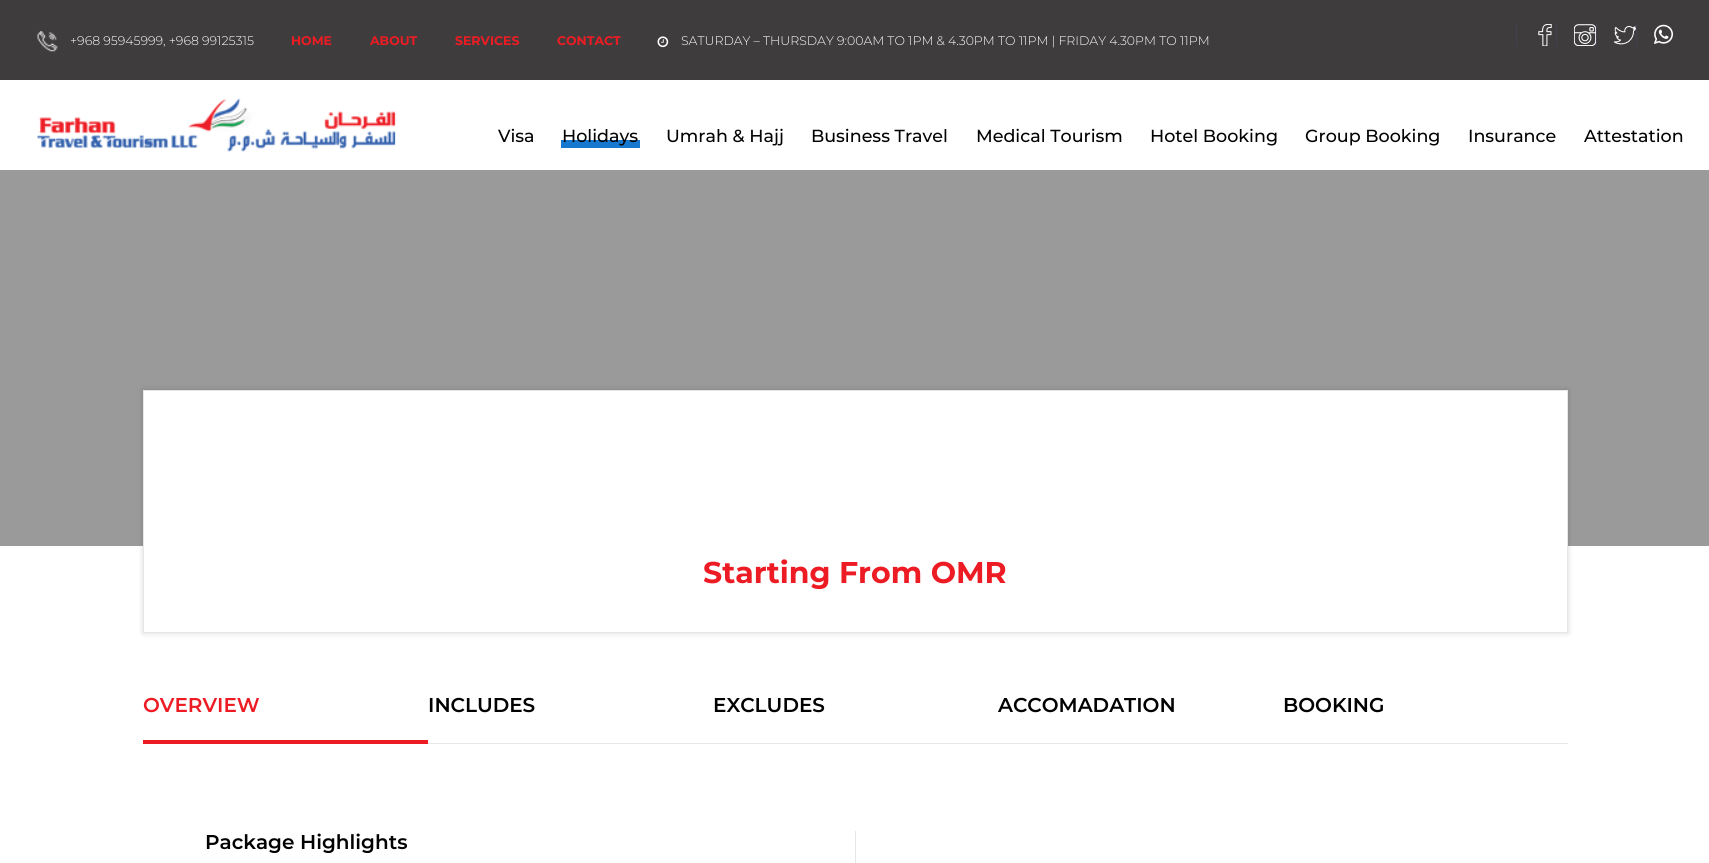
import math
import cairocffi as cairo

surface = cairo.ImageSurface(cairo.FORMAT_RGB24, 1709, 863)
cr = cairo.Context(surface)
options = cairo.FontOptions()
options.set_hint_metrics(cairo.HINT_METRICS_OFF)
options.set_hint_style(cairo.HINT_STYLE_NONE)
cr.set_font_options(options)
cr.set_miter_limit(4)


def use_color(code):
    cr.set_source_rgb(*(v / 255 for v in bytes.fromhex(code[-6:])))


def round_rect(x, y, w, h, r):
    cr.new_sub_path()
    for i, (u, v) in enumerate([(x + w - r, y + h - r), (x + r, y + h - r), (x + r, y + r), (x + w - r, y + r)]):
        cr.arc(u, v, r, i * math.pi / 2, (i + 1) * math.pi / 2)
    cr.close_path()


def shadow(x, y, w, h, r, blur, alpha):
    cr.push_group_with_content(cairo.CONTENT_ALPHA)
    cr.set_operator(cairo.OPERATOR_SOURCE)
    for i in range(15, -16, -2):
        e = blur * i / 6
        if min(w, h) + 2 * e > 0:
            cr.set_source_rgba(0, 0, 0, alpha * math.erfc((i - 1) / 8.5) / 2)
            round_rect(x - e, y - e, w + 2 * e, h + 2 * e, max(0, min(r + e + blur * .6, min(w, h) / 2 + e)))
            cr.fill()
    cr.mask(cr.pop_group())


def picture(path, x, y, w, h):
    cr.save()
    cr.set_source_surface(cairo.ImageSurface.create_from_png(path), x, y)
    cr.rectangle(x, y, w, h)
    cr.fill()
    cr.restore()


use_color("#ffffff")
cr.paint()
use_color("#3e3c3c")
cr.rectangle(0, 0, 1709, 80)
cr.fill()
picture("img1.png", 37, 31, 21, 21)
cr.select_font_face("Montserrat Light")
cr.set_font_size(12.5)
use_color("#ffffff")
cr.move_to(70, 45)
cr.show_text("+968 95945999, +968 99125315")
cr.select_font_face("Montserrat", cairo.FONT_SLANT_NORMAL, cairo.FONT_WEIGHT_BOLD)
use_color("#ed1c24")
cr.move_to(291, 45)
cr.show_text("HOME")
cr.move_to(370, 45)
cr.show_text("ABOUT")
cr.move_to(455, 45)
cr.show_text("SERVICES")
cr.move_to(557, 45)
cr.show_text("CONTACT")
picture("img2.png", 657, 36, 12, 12)
cr.select_font_face("Montserrat Light")
use_color("#ffffff")
cr.move_to(681, 45)
cr.show_text("SATURDAY – THURSDAY 9:00AM TO 1PM & 4.30PM TO 11PM | FRIDAY 4.30PM TO 11PM")
use_color("#414150")
cr.rectangle(1516, 24, 1, 22)
cr.fill()
picture("img3.png", 1538, 24, 14, 22)
cr.rectangle(1556, 24, 1, 22)
cr.fill()
picture("img4.png", 1574, 24, 22, 22)
cr.rectangle(1596, 24, 1, 22)
cr.fill()
picture("img5.png", 1614, 26, 22, 19)
cr.rectangle(1636, 24, 1, 22)
cr.fill()
picture("img6.png", 1654, 24, 19, 20)
picture("img7.png", 37, 98, 359, 54)
cr.select_font_face("Montserrat Medium")
cr.set_font_size(17.5)
use_color("#010101")
cr.move_to(498, 142)
cr.show_text("Visa")
use_color("#1678ce")
cr.rectangle(561, 140, 79, 8)
cr.fill()
use_color("#010101")
cr.move_to(562, 142)
cr.show_text("Holidays")
cr.move_to(666, 142)
cr.show_text("Umrah & Hajj")
cr.move_to(811, 142)
cr.show_text("Business Travel")
cr.move_to(976, 142)
cr.show_text("Medical Tourism")
cr.move_to(1150, 142)
cr.show_text("Hotel Booking")
cr.move_to(1305, 142)
cr.show_text("Group Booking")
cr.move_to(1468, 142)
cr.show_text("Insurance")
cr.move_to(1584, 142)
cr.show_text("Attestation")
use_color("#9a9a9a")
cr.rectangle(0, 170, 1709, 376)
cr.fill()
use_color("#000000")
shadow(143, 390, 1425, 243, 0, 3, 0.15)
use_color("#ffffff")
cr.rectangle(143.5, 390.5, 1424, 242)
cr.fill_preserve()
use_color("#e6e6e6")
cr.set_line_width(1)
cr.stroke()
cr.select_font_face("Montserrat", cairo.FONT_SLANT_NORMAL, cairo.FONT_WEIGHT_BOLD)
cr.set_font_size(30)
use_color("#ed1c24")
cr.move_to(703, 583)
cr.show_text("Starting From OMR")
use_color("#e6e6e6")
cr.rectangle(428, 743, 1140, 1)
cr.fill()
cr.select_font_face("Montserrat SemiBold")
cr.set_font_size(20)
use_color("#ed1c24")
cr.move_to(143, 712)
cr.show_text("OVERVIEW")
cr.rectangle(143, 740, 285, 4)
cr.fill()
use_color("#010101")
cr.move_to(428, 712)
cr.show_text("INCLUDES")
cr.move_to(713, 712)
cr.show_text("EXCLUDES")
cr.move_to(998, 712)
cr.show_text("ACCOMADATION")
cr.move_to(1283, 712)
cr.show_text("BOOKING")
cr.move_to(205, 849)
cr.show_text("Package Highlights")
use_color("#e6e6e6")
cr.rectangle(855, 831, 1, 32)
cr.fill()
surface.write_to_png("result.png")
